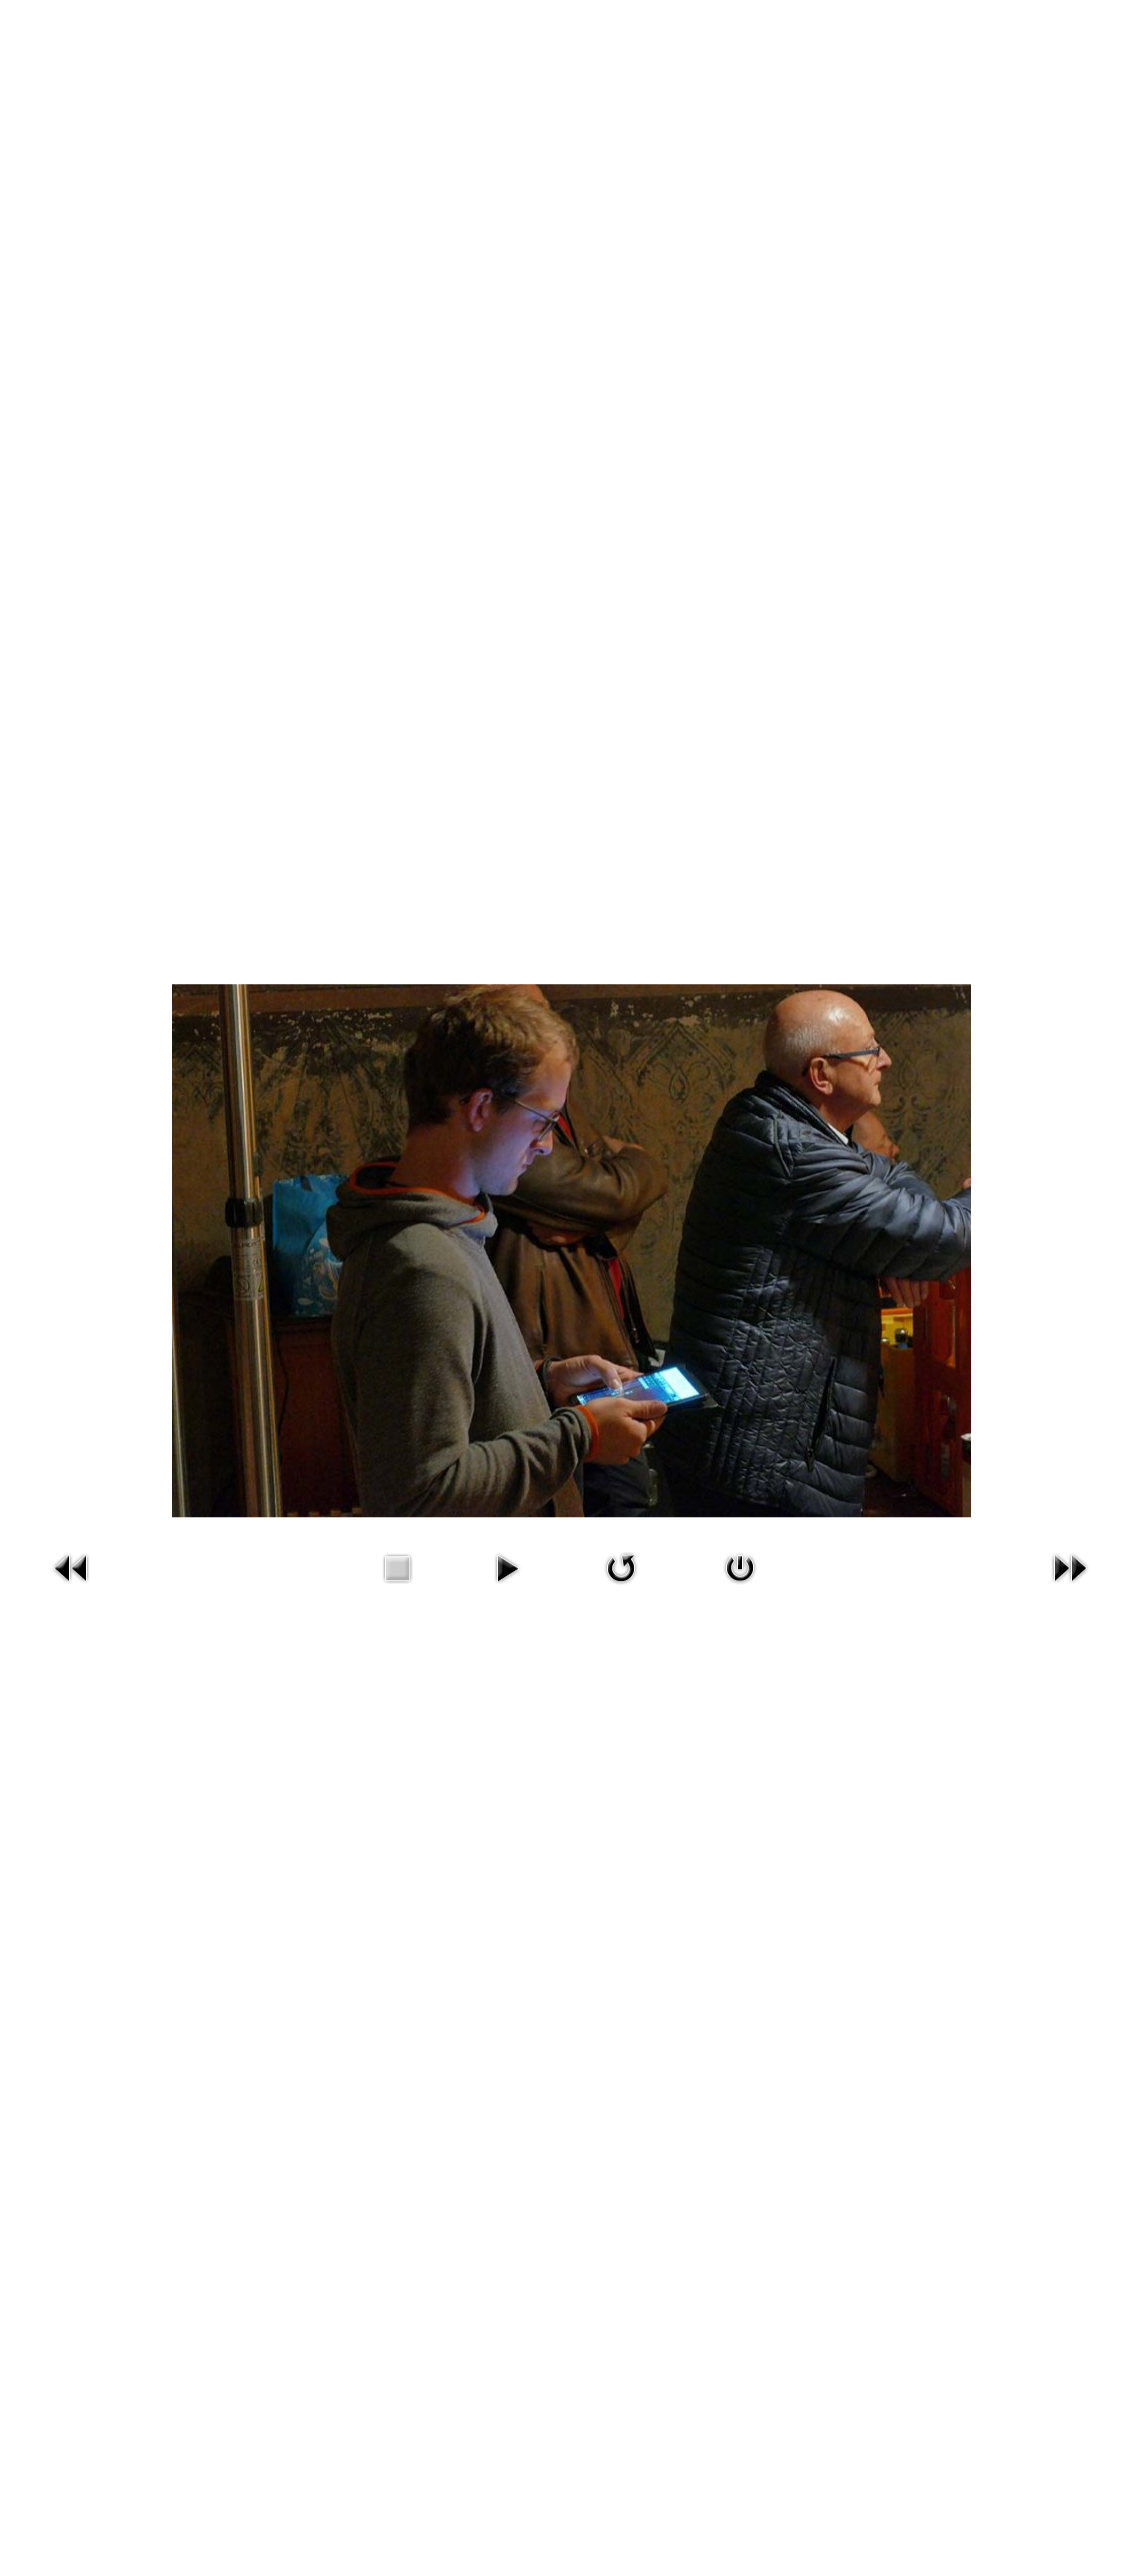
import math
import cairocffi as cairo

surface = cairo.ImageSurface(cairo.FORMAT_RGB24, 1142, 2573)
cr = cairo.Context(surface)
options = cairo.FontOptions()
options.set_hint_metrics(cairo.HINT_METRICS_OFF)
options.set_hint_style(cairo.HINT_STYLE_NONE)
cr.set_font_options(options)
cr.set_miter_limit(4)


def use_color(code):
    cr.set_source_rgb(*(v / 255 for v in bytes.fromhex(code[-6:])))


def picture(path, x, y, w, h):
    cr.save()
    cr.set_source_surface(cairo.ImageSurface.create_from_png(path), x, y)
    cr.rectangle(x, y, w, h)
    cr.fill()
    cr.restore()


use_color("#ffffff")
cr.paint()
picture("img1.png", 172, 984, 799, 534)
picture("img2.png", 52, 1553, 38, 31)
picture("img3.png", 382, 1553, 31, 31)
picture("img4.png", 494, 1553, 27, 31)
picture("img5.png", 604, 1552, 34, 33)
picture("img6.png", 723, 1552, 34, 33)
picture("img7.png", 1051, 1553, 38, 31)
surface.write_to_png("result.png")
